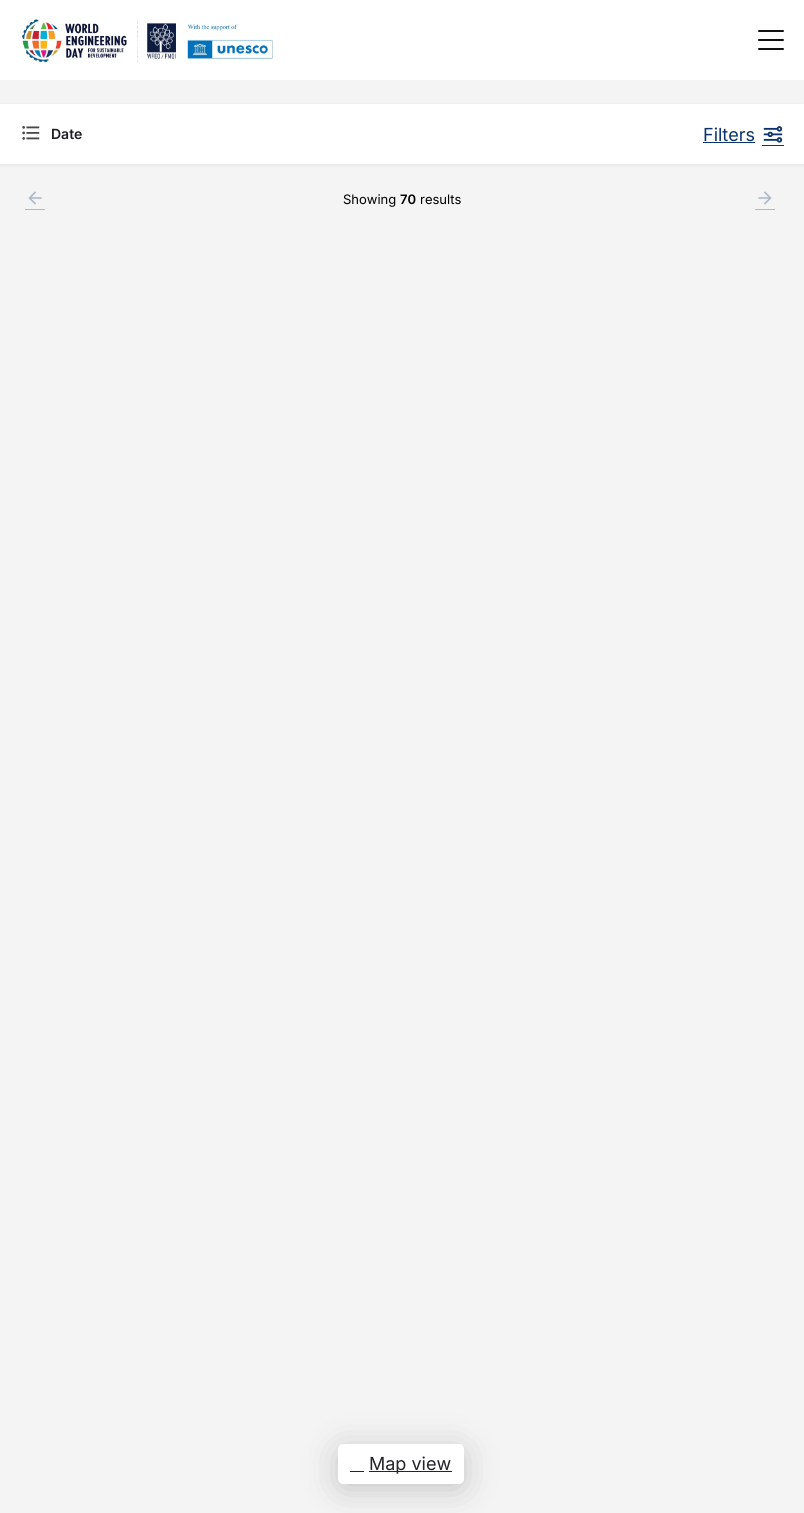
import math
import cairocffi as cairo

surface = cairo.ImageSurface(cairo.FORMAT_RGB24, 804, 1513)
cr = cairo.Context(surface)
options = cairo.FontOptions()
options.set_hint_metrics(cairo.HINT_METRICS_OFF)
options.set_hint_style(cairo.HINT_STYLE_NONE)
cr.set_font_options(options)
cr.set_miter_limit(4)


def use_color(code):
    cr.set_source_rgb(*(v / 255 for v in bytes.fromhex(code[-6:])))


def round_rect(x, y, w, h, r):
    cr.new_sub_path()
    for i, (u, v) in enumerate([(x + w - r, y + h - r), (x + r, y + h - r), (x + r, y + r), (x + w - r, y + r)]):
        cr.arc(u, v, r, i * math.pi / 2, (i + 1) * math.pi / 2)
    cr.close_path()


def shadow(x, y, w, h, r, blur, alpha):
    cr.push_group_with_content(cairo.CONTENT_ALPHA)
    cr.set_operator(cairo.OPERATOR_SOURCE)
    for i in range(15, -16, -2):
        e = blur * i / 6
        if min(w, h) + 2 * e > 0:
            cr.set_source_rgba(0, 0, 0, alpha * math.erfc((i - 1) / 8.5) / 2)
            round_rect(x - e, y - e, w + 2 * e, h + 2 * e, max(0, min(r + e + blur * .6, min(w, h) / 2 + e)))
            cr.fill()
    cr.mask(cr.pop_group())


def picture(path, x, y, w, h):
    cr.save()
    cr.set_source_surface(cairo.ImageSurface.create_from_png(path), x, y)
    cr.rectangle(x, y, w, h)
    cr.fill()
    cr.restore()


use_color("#ffffff")
cr.paint()
use_color("#f4f4f4")
cr.rectangle(0, 80, 804, 24)
cr.fill()
picture("img1.png", 21, 19, 252, 44)
use_color("#111111")
round_rect(758, 30, 26, 2, 1)
cr.fill()
round_rect(758, 39, 26, 2, 1)
cr.fill()
round_rect(758, 48, 26, 2, 1)
cr.fill()
use_color("#f4f4f4")
cr.rectangle(0, 164, 804, 1349)
cr.fill()
use_color("#000000")
shadow(0, 105, 804, 60, 0, 2, 0.07)
use_color("#ffffff")
cr.rectangle(0, 104, 804, 60)
cr.fill()
picture("img2.png", 22, 126, 18, 14)
cr.select_font_face("Inter SemiBold")
cr.set_font_size(14)
use_color("#1d1d23")
cr.move_to(51, 139)
cr.show_text("Date")
cr.select_font_face("Inter")
cr.set_font_size(18)
use_color("#0c346c")
cr.move_to(703, 141)
cr.show_text("Filters")
cr.rectangle(703, 142, 52, 1)
cr.fill()
picture("img3.png", 763, 126, 20, 17)
cr.rectangle(762, 145, 22, 1)
cr.fill()
picture("img4.png", 28, 191, 14, 14)
use_color("#aebacb")
cr.rectangle(25, 209, 20, 1)
cr.fill()
cr.set_font_size(13)
use_color("#000000")
cr.move_to(343, 204)
cr.show_text("Showing")
cr.select_font_face("Inter SemiBold")
cr.move_to(400, 204)
cr.show_text("70")
cr.select_font_face("Inter")
cr.move_to(420, 204)
cr.show_text("results")
picture("img5.png", 758, 191, 14, 14)
use_color("#aebacb")
cr.rectangle(755, 209, 20, 1)
cr.fill()
use_color("#000000")
shadow(338, 1449, 126, 40, 5, 16.5, 0.2)
use_color("#ffffff")
round_rect(338, 1444, 126, 40, 5)
cr.fill()
use_color("#242429")
cr.rectangle(350, 1471, 14, 1)
cr.fill()
cr.rectangle(369, 1471, 83, 1)
cr.fill()
cr.set_font_size(18)
cr.move_to(369, 1470)
cr.show_text("Map view")
surface.write_to_png("result.png")
